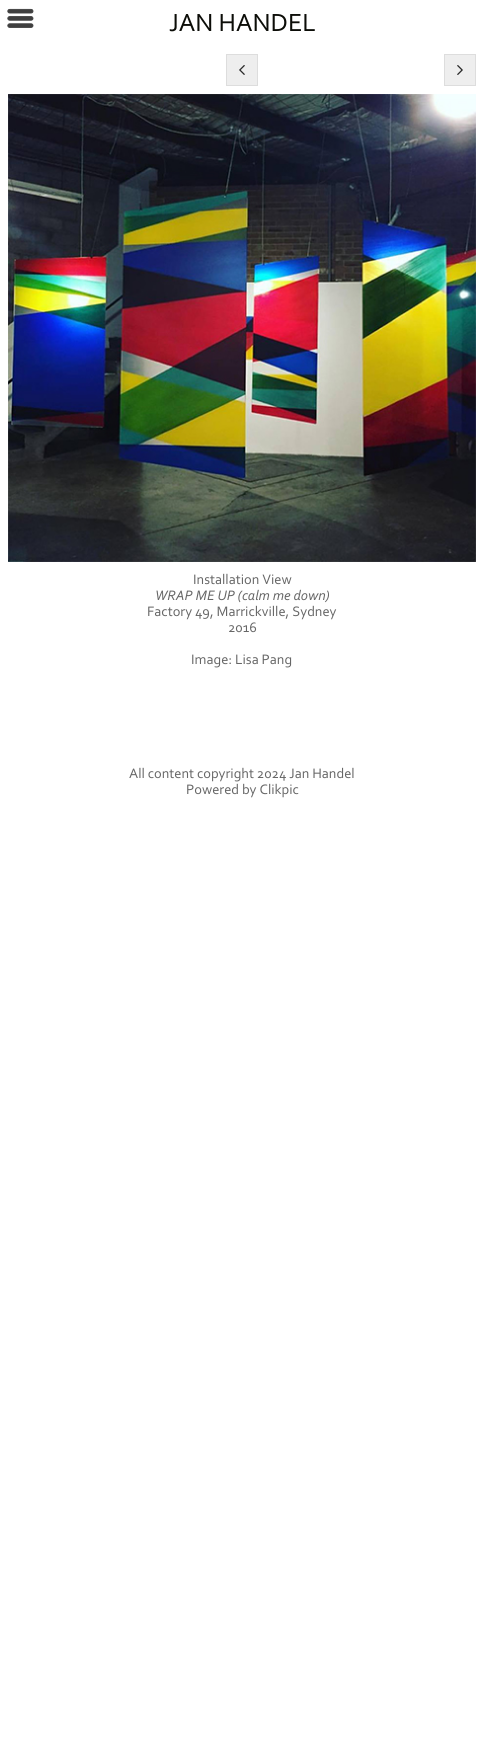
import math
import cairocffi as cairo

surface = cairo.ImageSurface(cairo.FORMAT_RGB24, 484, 1761)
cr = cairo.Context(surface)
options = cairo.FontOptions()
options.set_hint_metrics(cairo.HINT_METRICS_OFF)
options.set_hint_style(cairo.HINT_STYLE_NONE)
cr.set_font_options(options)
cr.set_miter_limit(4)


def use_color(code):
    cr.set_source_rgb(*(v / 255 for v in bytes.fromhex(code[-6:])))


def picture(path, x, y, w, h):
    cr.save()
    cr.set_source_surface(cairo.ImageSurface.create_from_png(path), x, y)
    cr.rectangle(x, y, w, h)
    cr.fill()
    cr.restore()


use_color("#ffffff")
cr.paint()
picture("img1.png", 7, 8, 27, 20)
cr.select_font_face("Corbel")
cr.set_font_size(26)
use_color("#0c0d08")
cr.move_to(169, 31)
cr.show_text("JAN HANDEL")
use_color("#eeeeee")
cr.rectangle(226.5, 54.5, 31, 31)
cr.fill_preserve()
use_color("#dddddd")
cr.set_line_width(1)
cr.stroke()
picture("img2.png", 239, 65, 6, 10)
use_color("#eeeeee")
cr.rectangle(444.5, 54.5, 31, 31)
cr.fill_preserve()
use_color("#dddddd")
cr.stroke()
picture("img3.png", 457, 65, 6, 10)
picture("img4.png", 8, 94, 468, 468)
cr.set_font_size(14.4)
use_color("#666666")
cr.move_to(193, 584)
cr.show_text("Installation View")
cr.select_font_face("Corbel", cairo.FONT_SLANT_ITALIC)
cr.move_to(155, 600)
cr.show_text("WRAP ME UP (calm me down)")
cr.select_font_face("Corbel")
cr.move_to(147, 616)
cr.show_text("Factory 49, Marrickville, Sydney")
cr.move_to(228, 632)
cr.show_text("2016")
cr.move_to(191, 664)
cr.show_text("Image: Lisa Pang")
cr.move_to(129, 778)
cr.show_text("All content copyright 2024 Jan Handel")
cr.move_to(186, 794)
cr.show_text("Powered by Clikpic")
surface.write_to_png("result.png")
